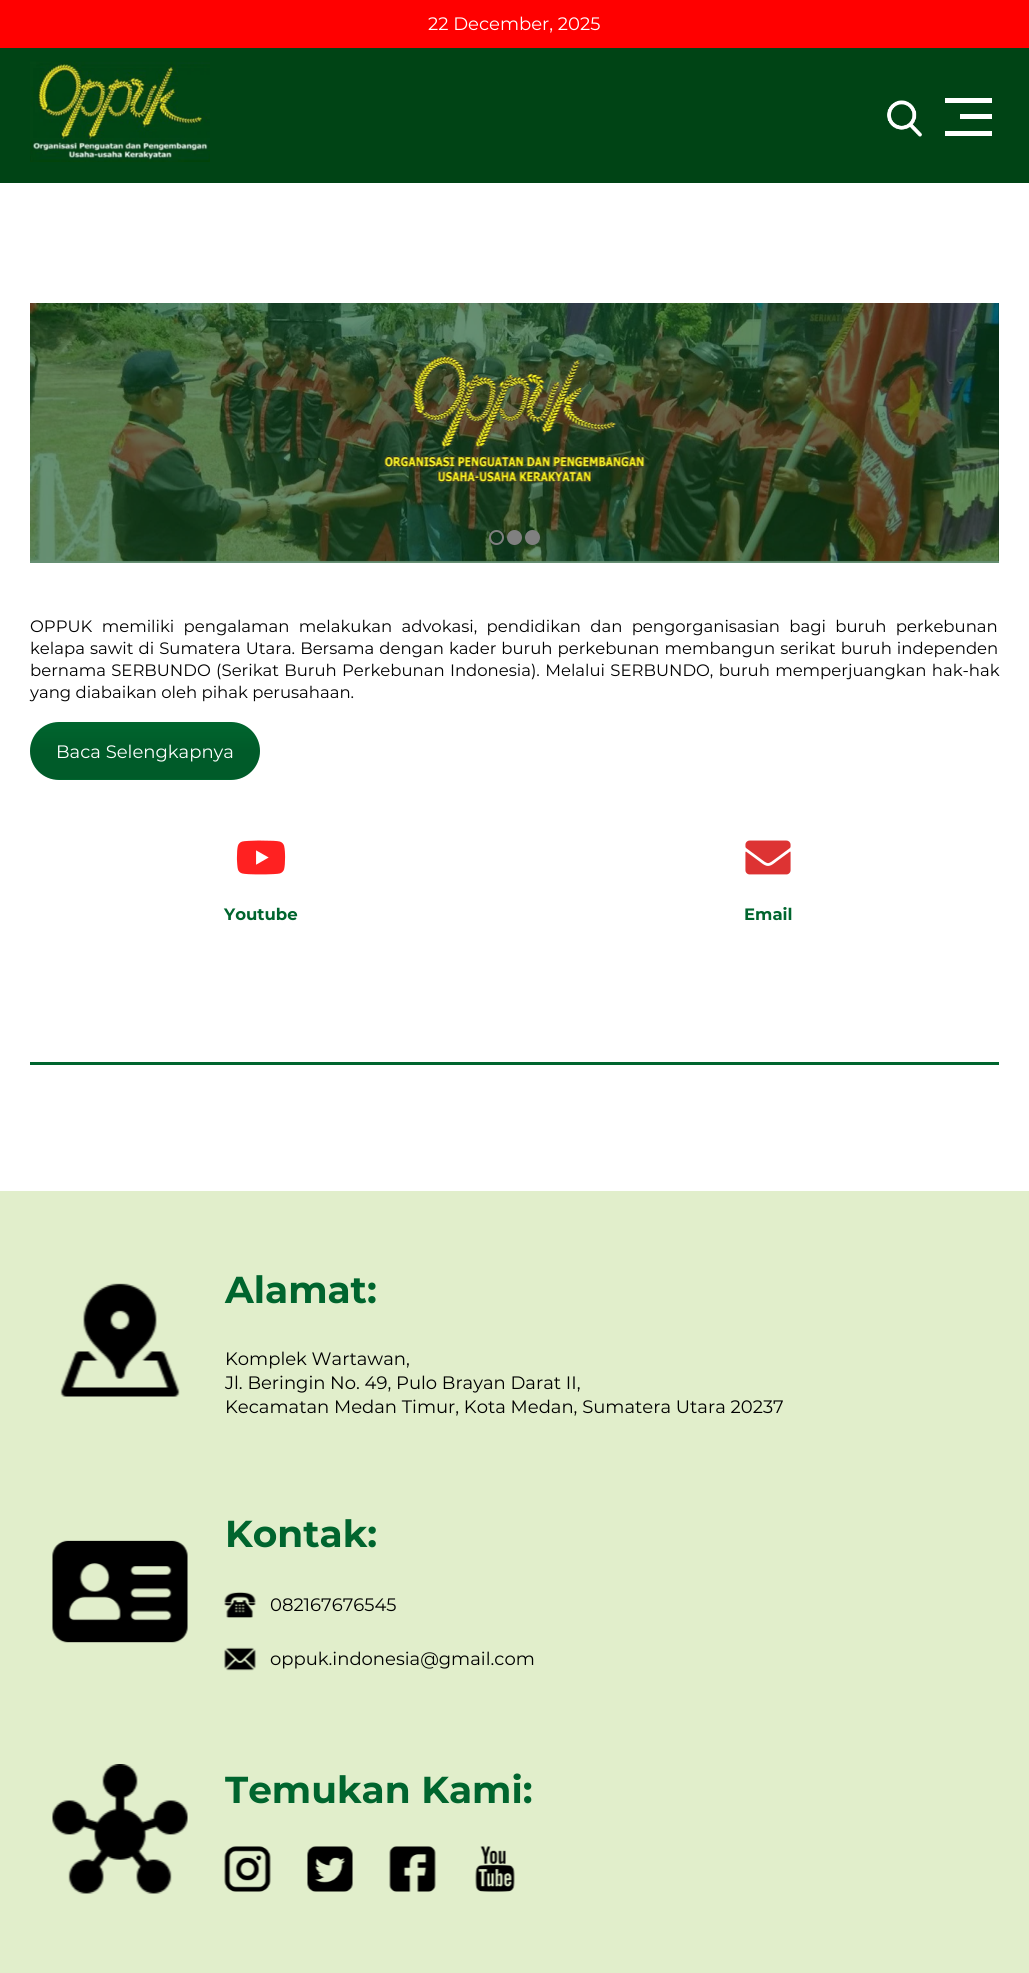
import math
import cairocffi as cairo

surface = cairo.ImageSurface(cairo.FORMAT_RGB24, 1029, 1973)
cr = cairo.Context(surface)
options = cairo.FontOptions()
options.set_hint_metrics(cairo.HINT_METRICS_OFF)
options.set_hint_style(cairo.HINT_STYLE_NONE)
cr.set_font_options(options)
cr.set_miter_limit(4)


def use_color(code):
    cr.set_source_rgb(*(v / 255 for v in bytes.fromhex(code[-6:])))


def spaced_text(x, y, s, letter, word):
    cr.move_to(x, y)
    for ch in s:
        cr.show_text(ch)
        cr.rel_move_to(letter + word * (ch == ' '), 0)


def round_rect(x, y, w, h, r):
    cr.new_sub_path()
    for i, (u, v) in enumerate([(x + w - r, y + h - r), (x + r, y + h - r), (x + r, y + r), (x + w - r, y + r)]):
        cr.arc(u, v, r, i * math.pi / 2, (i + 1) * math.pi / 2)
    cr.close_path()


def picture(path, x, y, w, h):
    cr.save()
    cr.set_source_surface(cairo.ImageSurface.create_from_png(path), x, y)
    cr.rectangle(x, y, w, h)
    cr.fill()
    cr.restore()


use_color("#ffffff")
cr.paint()
use_color("#668f73")
cr.rectangle(30, 560, 969, 3)
cr.fill()
use_color("#004415")
cr.rectangle(0, 48, 1029, 135)
cr.fill()
use_color("#ff0000")
cr.rectangle(0, 0, 1029, 48)
cr.fill()
cr.select_font_face("Montserrat")
cr.set_font_size(18)
use_color("#ffffff")
cr.move_to(428, 30)
cr.show_text("22 December, 2025")
picture("img1.png", 30, 61, 180, 101)
picture("img2.png", 887, 100, 35, 37)
cr.rectangle(945, 98, 47, 5)
cr.fill()
cr.rectangle(960, 114, 32, 5)
cr.fill()
cr.rectangle(945, 131, 47, 5)
cr.fill()
picture("img3.png", 30, 303, 969, 259)
picture("img4.png", 998, 303, 1, 258)
cr.arc(496.5, 537.5, 6.5, 0, 2 * math.pi)
use_color("#808080")
cr.stroke()
cr.arc(514.5, 537.5, 6.5, 0, 2 * math.pi)
cr.fill_preserve()
cr.stroke()
cr.arc(532.5, 537.5, 6.5, 0, 2 * math.pi)
cr.fill_preserve()
cr.stroke()
picture("img5.png", 384, 355, 261, 128)
cr.set_font_size(16.5)
use_color("#000000")
spaced_text(30, 632, "OPPUK memiliki pengalaman melakukan advokasi, pendidikan dan pengorganisasian bagi buruh perkebunan", 0, 5)
spaced_text(30, 654, "kelapa sawit di Sumatera Utara. Bersama dengan kader buruh perkebunan membangun serikat buruh independen", 0, 0.75)
spaced_text(30, 676, "bernama SERBUNDO (Serikat Buruh Perkebunan Indonesia). Melalui SERBUNDO, buruh memperjuangkan hak-hak", 0, 1)
cr.move_to(30, 698)
cr.show_text("yang diabaikan oleh pihak perusahaan.")
use_color("#00652e")
round_rect(30, 722, 230, 58, 29)
cr.fill()
cr.save()
round_rect(30, 722, 230, 58, 29)
cr.clip()
gradient = cairo.LinearGradient(258, 723, 258, 779)
gradient.add_color_stop_rgba(0, 0, 0, 0, 0)
gradient.add_color_stop_rgba(0.5, 0, 0, 0, 0.1)
gradient.add_color_stop_rgba(1, 0, 0, 0, 0.1)
cr.set_source(gradient)
cr.rectangle(30, 729, 230, 50)
cr.fill()
cr.restore()
cr.set_font_size(18)
use_color("#ffffff")
cr.move_to(56, 758)
cr.show_text("Baca Selengkapnya")
picture("img6.png", 236, 840, 50, 35)
cr.select_font_face("Montserrat", cairo.FONT_SLANT_NORMAL, cairo.FONT_WEIGHT_BOLD)
cr.set_font_size(16.5)
use_color("#00652e")
cr.move_to(224, 920)
cr.show_text("Youtube")
picture("img7.png", 745, 840, 46, 35)
cr.move_to(744, 920)
cr.show_text("Email")
cr.rectangle(30, 1062, 969, 3)
cr.fill()
use_color("#e1eecb")
cr.rectangle(0, 1191, 1029, 782)
cr.fill()
picture("img8.png", 60, 1283, 120, 114)
cr.set_font_size(37.5)
use_color("#00652e")
cr.move_to(225, 1303)
cr.show_text("Alamat:")
cr.select_font_face("Montserrat")
cr.set_font_size(18)
use_color("#000000")
cr.move_to(225, 1365)
cr.show_text("Komplek Wartawan,")
cr.move_to(225, 1389)
cr.show_text("Jl. Beringin No. 49, Pulo Brayan Darat II,")
cr.move_to(225, 1413)
cr.show_text("Kecamatan Medan Timur, Kota Medan, Sumatera Utara 20237")
picture("img9.png", 52, 1540, 136, 103)
cr.select_font_face("Montserrat", cairo.FONT_SLANT_NORMAL, cairo.FONT_WEIGHT_BOLD)
cr.set_font_size(37.5)
use_color("#00652e")
cr.move_to(225, 1547)
cr.show_text("Kontak:")
picture("img10.png", 224, 1592, 32, 26)
cr.select_font_face("Montserrat")
cr.set_font_size(18)
use_color("#000000")
cr.move_to(270, 1611)
cr.show_text("082167676545")
picture("img11.png", 224, 1647, 32, 24)
cr.move_to(270, 1665)
cr.show_text("oppuk.indonesia@gmail.com")
picture("img12.png", 52, 1764, 136, 130)
cr.select_font_face("Montserrat", cairo.FONT_SLANT_NORMAL, cairo.FONT_WEIGHT_BOLD)
cr.set_font_size(37.5)
use_color("#00652e")
cr.move_to(225, 1803)
cr.show_text("Temukan Kami:")
picture("img13.png", 224, 1846, 47, 46)
picture("img14.png", 307, 1846, 46, 46)
picture("img15.png", 389, 1846, 47, 46)
picture("img16.png", 475, 1846, 40, 46)
surface.write_to_png("result.png")
